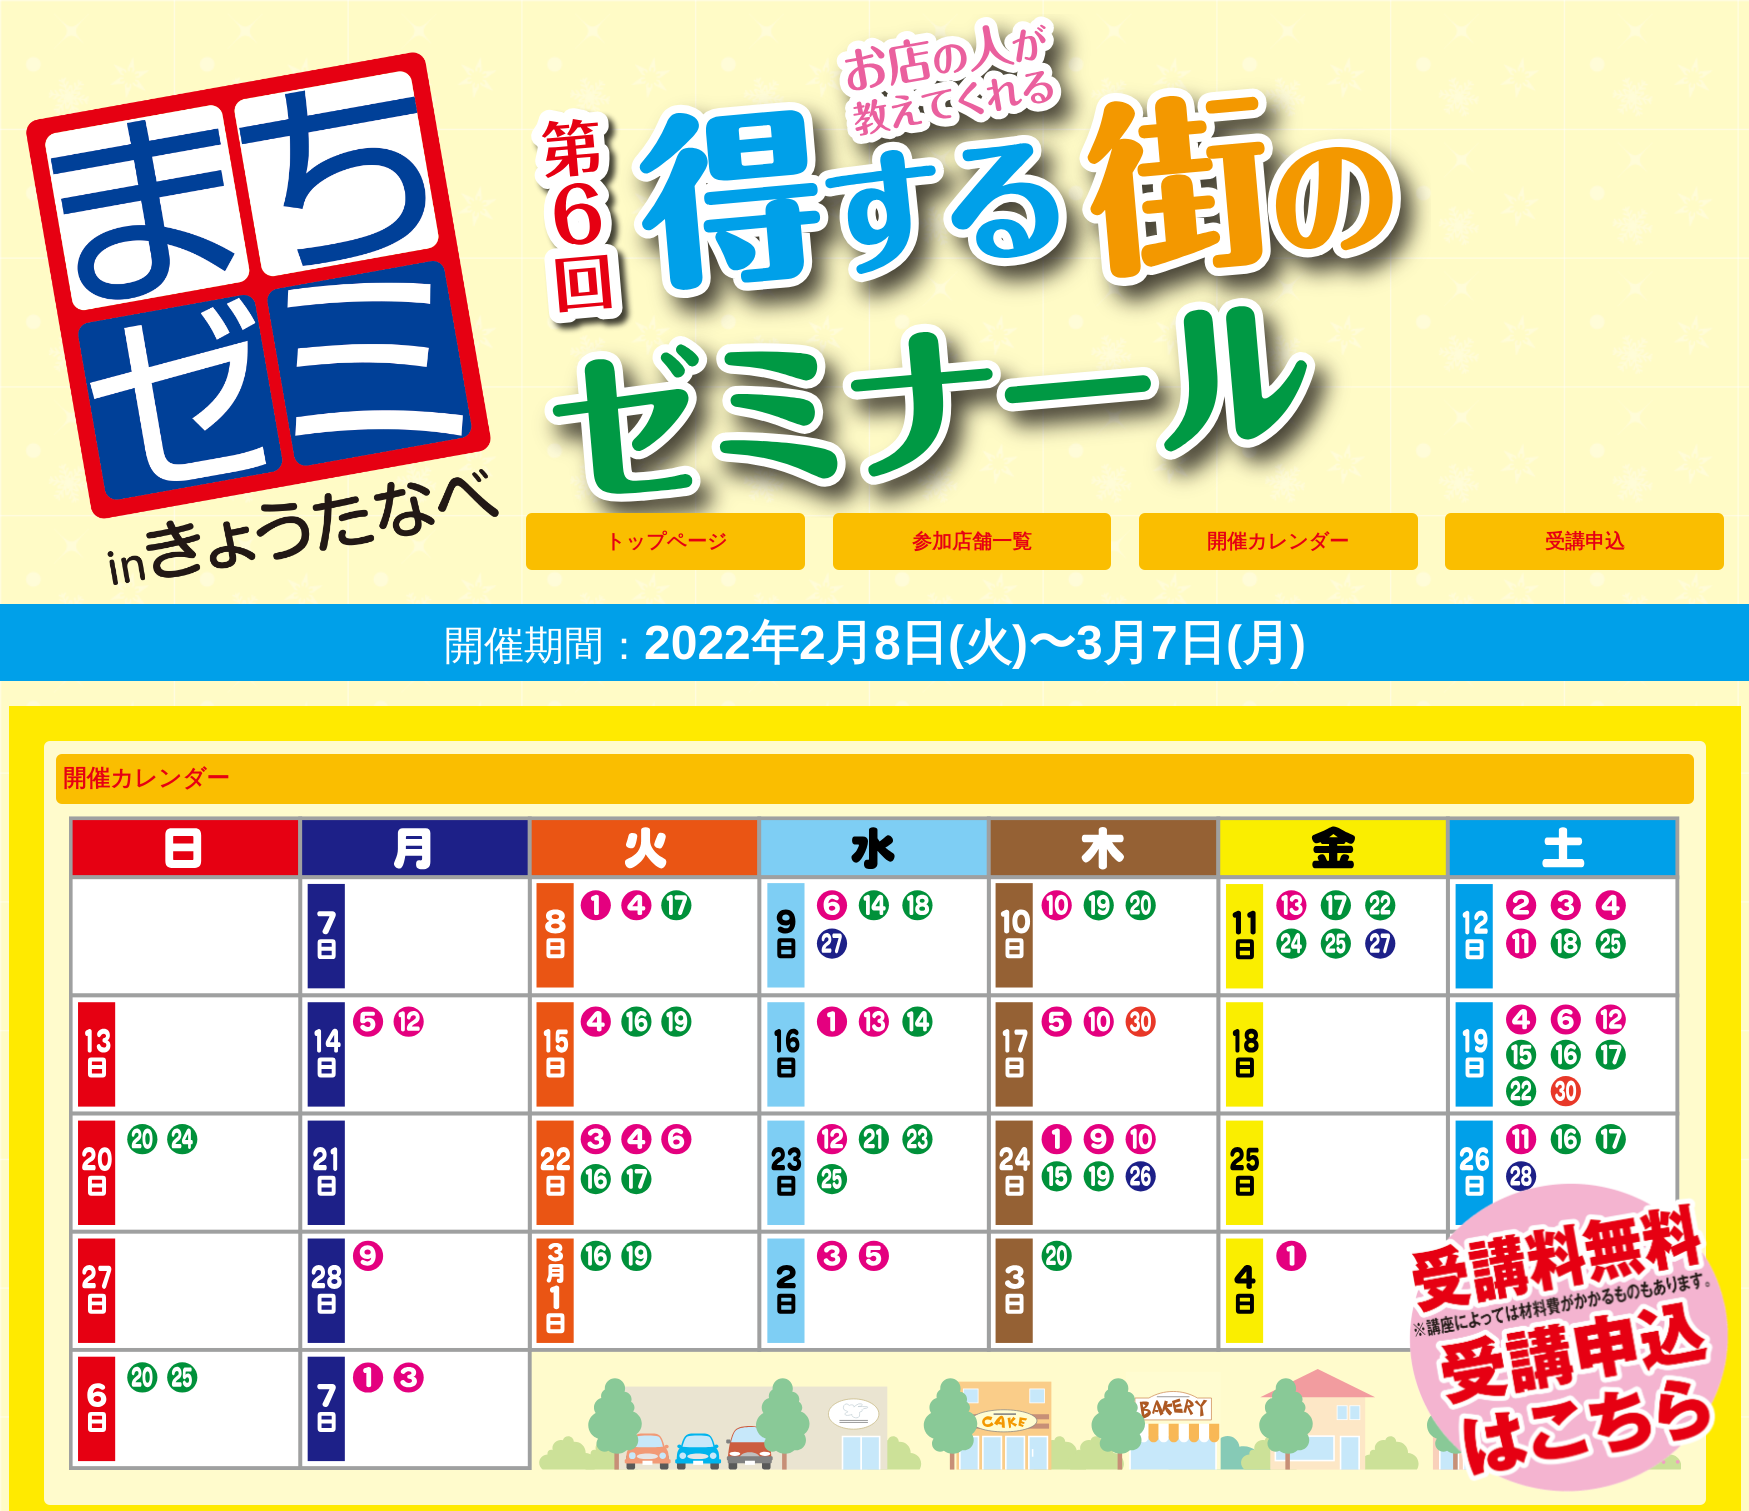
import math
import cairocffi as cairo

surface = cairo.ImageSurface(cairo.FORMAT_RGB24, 1749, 1511)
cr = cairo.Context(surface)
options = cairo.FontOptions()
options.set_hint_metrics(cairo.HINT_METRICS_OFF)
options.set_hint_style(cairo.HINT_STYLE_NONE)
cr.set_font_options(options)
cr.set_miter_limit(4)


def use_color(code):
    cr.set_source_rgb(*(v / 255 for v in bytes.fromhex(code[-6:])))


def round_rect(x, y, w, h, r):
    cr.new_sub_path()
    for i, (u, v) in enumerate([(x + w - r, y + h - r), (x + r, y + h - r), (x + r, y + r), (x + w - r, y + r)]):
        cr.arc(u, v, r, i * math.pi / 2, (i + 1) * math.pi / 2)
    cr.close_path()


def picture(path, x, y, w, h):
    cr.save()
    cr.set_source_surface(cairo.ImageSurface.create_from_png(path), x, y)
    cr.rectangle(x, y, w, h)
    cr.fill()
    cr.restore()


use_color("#ffffff")
cr.paint()
picture("img1.png", 0, 0, 1749, 1511)
picture("img2.png", 26, 52, 473, 533)
picture("img3.png", 531, 14, 900, 504)
use_color("#fabe00")
round_rect(526, 513, 279, 57, 6)
cr.fill()
cr.select_font_face("WenQuanYi Zen Hei", cairo.FONT_SLANT_NORMAL, cairo.FONT_WEIGHT_BOLD)
cr.set_font_size(20)
use_color("#e60012")
cr.move_to(605, 548)
cr.show_text("トップページ")
use_color("#fabe00")
round_rect(833, 513, 278, 57, 6)
cr.fill()
use_color("#e60012")
cr.move_to(912, 548)
cr.show_text("参加店舗一覧")
use_color("#fabe00")
round_rect(1139, 513, 279, 57, 6)
cr.fill()
use_color("#e60012")
cr.move_to(1207, 548)
cr.show_text("開催カレンダー")
use_color("#fabe00")
round_rect(1445, 513, 279, 57, 6)
cr.fill()
use_color("#e60012")
cr.move_to(1545, 548)
cr.show_text("受講申込")
use_color("#00a0e9")
cr.rectangle(0, 604, 1749, 77)
cr.fill()
cr.select_font_face("WenQuanYi Zen Hei Medium")
cr.set_font_size(40)
use_color("#ffffff")
cr.move_to(444, 659)
cr.show_text("開催期間：")
cr.select_font_face("Liberation Sans", cairo.FONT_SLANT_NORMAL, cairo.FONT_WEIGHT_BOLD)
cr.set_font_size(48)
cr.move_to(644, 659)
cr.show_text("2022")
cr.select_font_face("WenQuanYi Zen Hei", cairo.FONT_SLANT_NORMAL, cairo.FONT_WEIGHT_BOLD)
cr.move_to(751, 659)
cr.show_text("年")
cr.select_font_face("Liberation Sans", cairo.FONT_SLANT_NORMAL, cairo.FONT_WEIGHT_BOLD)
cr.move_to(799, 659)
cr.show_text("2")
cr.select_font_face("WenQuanYi Zen Hei", cairo.FONT_SLANT_NORMAL, cairo.FONT_WEIGHT_BOLD)
cr.move_to(826, 659)
cr.show_text("月")
cr.select_font_face("Liberation Sans", cairo.FONT_SLANT_NORMAL, cairo.FONT_WEIGHT_BOLD)
cr.move_to(874, 659)
cr.show_text("8")
cr.select_font_face("WenQuanYi Zen Hei", cairo.FONT_SLANT_NORMAL, cairo.FONT_WEIGHT_BOLD)
cr.move_to(900, 659)
cr.show_text("日")
cr.select_font_face("Liberation Sans", cairo.FONT_SLANT_NORMAL, cairo.FONT_WEIGHT_BOLD)
cr.move_to(948, 659)
cr.show_text("(")
cr.select_font_face("WenQuanYi Zen Hei", cairo.FONT_SLANT_NORMAL, cairo.FONT_WEIGHT_BOLD)
cr.move_to(964, 659)
cr.show_text("火")
cr.select_font_face("Liberation Sans", cairo.FONT_SLANT_NORMAL, cairo.FONT_WEIGHT_BOLD)
cr.move_to(1012, 659)
cr.show_text(")")
cr.select_font_face("WenQuanYi Zen Hei", cairo.FONT_SLANT_NORMAL, cairo.FONT_WEIGHT_BOLD)
cr.move_to(1028, 659)
cr.show_text("〜")
cr.select_font_face("Liberation Sans", cairo.FONT_SLANT_NORMAL, cairo.FONT_WEIGHT_BOLD)
cr.move_to(1076, 659)
cr.show_text("3")
cr.select_font_face("WenQuanYi Zen Hei", cairo.FONT_SLANT_NORMAL, cairo.FONT_WEIGHT_BOLD)
cr.move_to(1103, 659)
cr.show_text("月")
cr.select_font_face("Liberation Sans", cairo.FONT_SLANT_NORMAL, cairo.FONT_WEIGHT_BOLD)
cr.move_to(1151, 659)
cr.show_text("7")
cr.select_font_face("WenQuanYi Zen Hei", cairo.FONT_SLANT_NORMAL, cairo.FONT_WEIGHT_BOLD)
cr.move_to(1178, 659)
cr.show_text("日")
cr.select_font_face("Liberation Sans", cairo.FONT_SLANT_NORMAL, cairo.FONT_WEIGHT_BOLD)
cr.move_to(1226, 659)
cr.show_text("(")
cr.select_font_face("WenQuanYi Zen Hei", cairo.FONT_SLANT_NORMAL, cairo.FONT_WEIGHT_BOLD)
cr.move_to(1242, 659)
cr.show_text("月")
cr.select_font_face("Liberation Sans", cairo.FONT_SLANT_NORMAL, cairo.FONT_WEIGHT_BOLD)
cr.move_to(1290, 659)
cr.show_text(")")
use_color("#ffea00")
cr.rectangle(9, 706, 1732, 805)
cr.fill()
use_color("#fffbcc")
round_rect(44, 741, 1662, 764, 6)
cr.fill()
picture("img5.png", 69, 816, 1612, 654)
picture("img4.png", 1409, 1183, 320, 309)
use_color("#fabe00")
round_rect(56, 754, 1638, 50, 6)
cr.fill()
cr.select_font_face("WenQuanYi Zen Hei", cairo.FONT_SLANT_NORMAL, cairo.FONT_WEIGHT_BOLD)
cr.set_font_size(23.5)
use_color("#e60012")
cr.move_to(63, 786)
cr.show_text("開催カレンダー")
surface.write_to_png("result.png")
